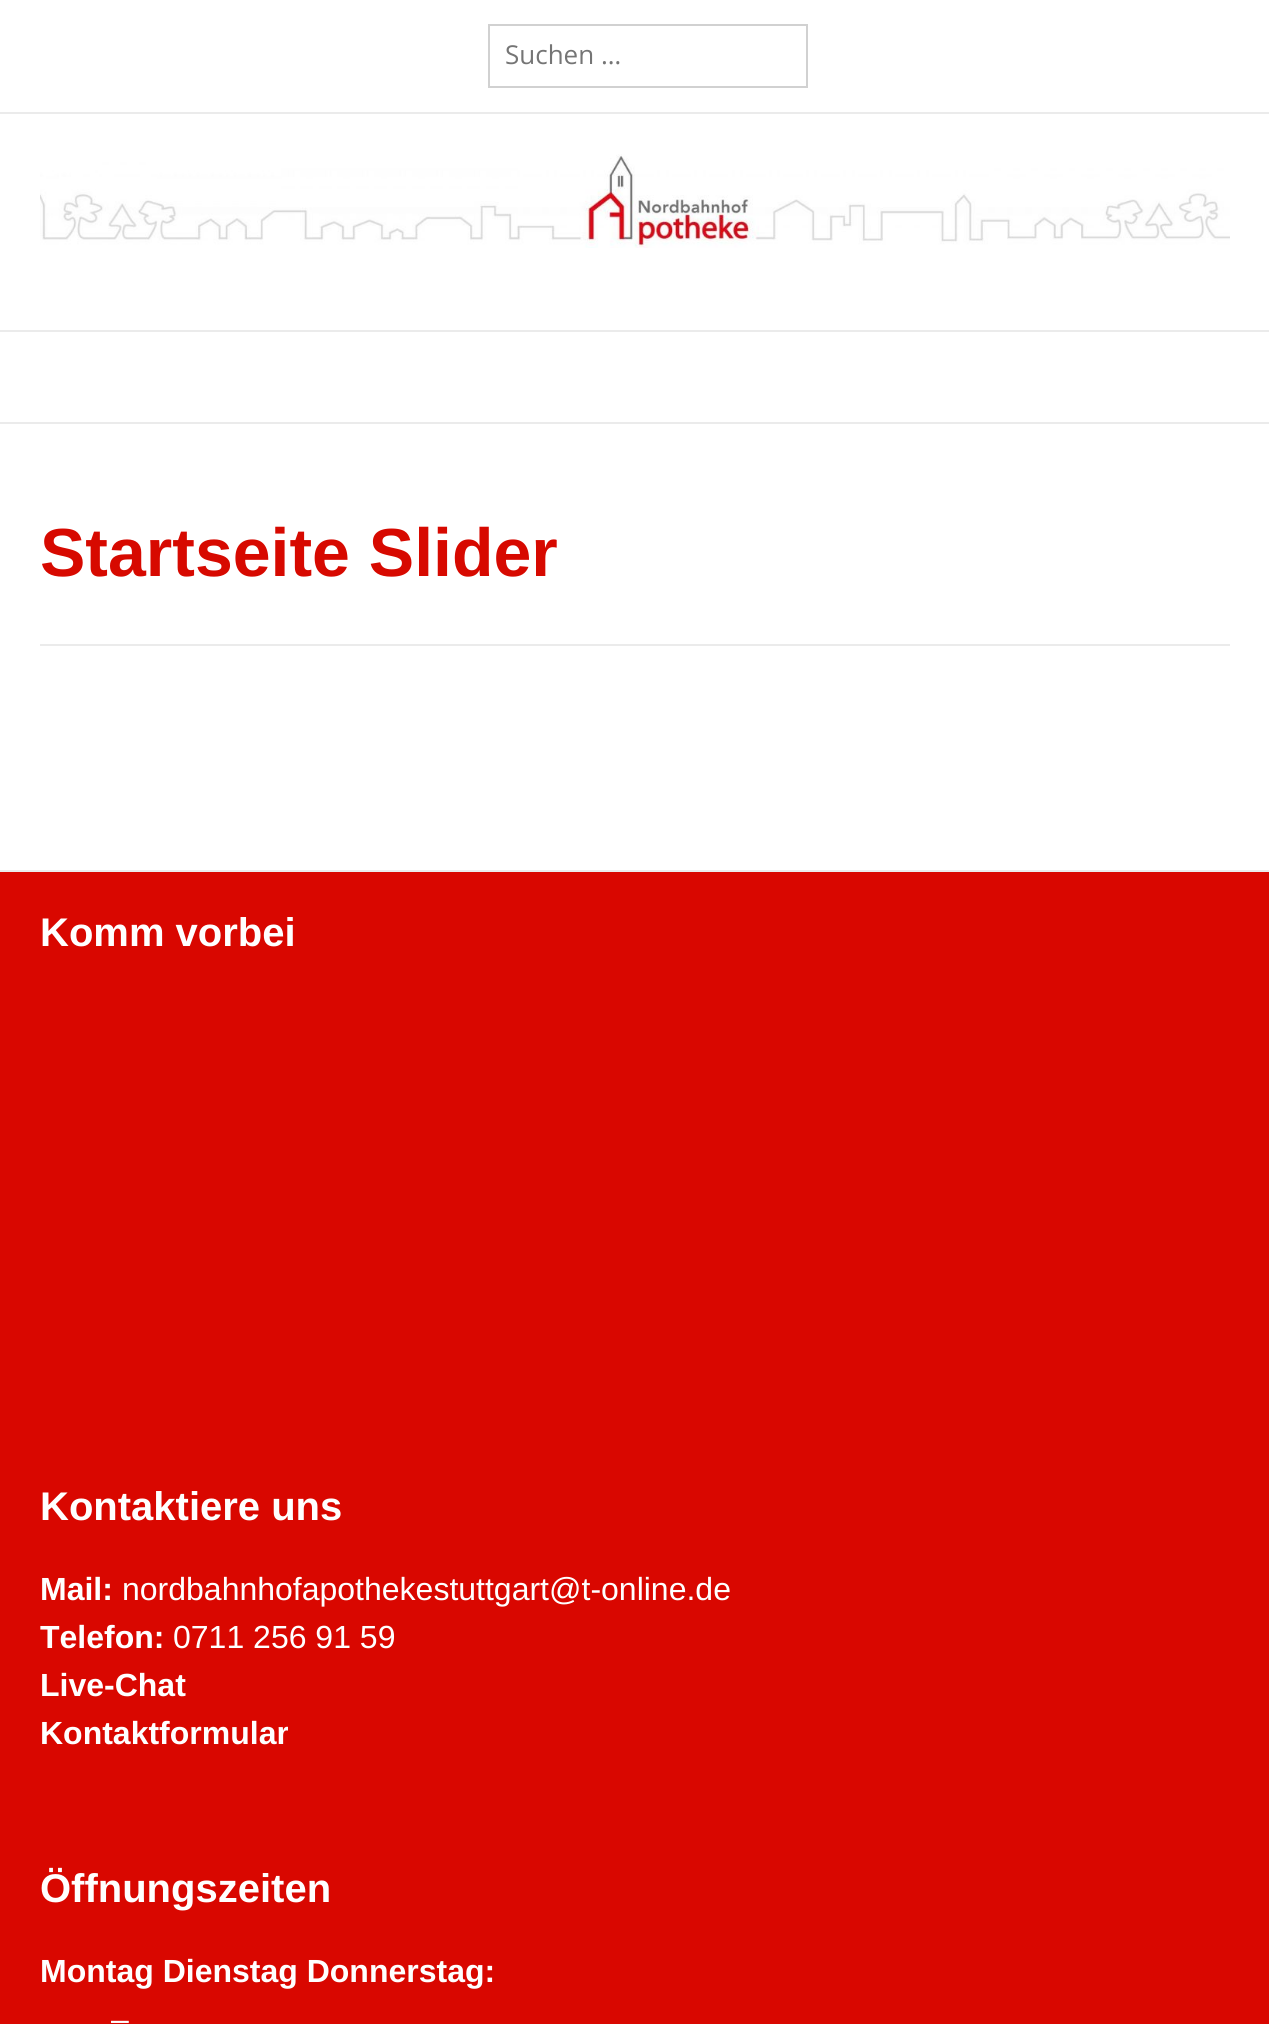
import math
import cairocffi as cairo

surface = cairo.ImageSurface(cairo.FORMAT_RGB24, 1269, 2024)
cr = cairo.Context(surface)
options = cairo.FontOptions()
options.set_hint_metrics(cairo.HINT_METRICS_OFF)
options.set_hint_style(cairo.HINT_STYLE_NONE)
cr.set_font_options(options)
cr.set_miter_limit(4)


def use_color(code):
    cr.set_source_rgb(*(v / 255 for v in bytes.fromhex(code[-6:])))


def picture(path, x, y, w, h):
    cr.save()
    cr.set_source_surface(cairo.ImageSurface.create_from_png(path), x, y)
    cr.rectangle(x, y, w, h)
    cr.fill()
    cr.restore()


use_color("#ffffff")
cr.paint()
use_color("#ebebeb")
cr.rectangle(0, 422, 1269, 2)
cr.fill()
cr.rectangle(0, 112, 1269, 2)
cr.fill()
cr.rectangle(489, 25, 318, 62)
use_color("#d1d1d1")
cr.stroke()
cr.select_font_face("Open Sans")
cr.set_font_size(26)
use_color("#757575")
cr.move_to(505, 64)
cr.show_text("Suchen …")
picture("img1.png", 40, 154, 1190, 94)
use_color("#ebebeb")
cr.rectangle(0, 330, 1269, 2)
cr.fill()
cr.rectangle(40, 644, 1190, 2)
cr.fill()
cr.select_font_face("Liberation Sans", cairo.FONT_SLANT_NORMAL, cairo.FONT_WEIGHT_BOLD)
cr.set_font_size(68)
use_color("#d70900")
cr.move_to(40, 576)
cr.show_text("Startseite Slider")
use_color("#ebebeb")
cr.rectangle(0, 870, 1269, 2)
cr.fill()
use_color("#d90700")
cr.rectangle(0, 872, 1269, 1152)
cr.fill()
cr.set_font_size(40)
use_color("#ffffff")
cr.move_to(40, 946)
cr.show_text("Komm vorbei")
cr.move_to(40, 1520)
cr.show_text("Kontaktiere uns")
cr.set_font_size(32)
cr.move_to(40, 1600)
cr.show_text("Mail:")
cr.select_font_face("Liberation Sans")
cr.move_to(122, 1600)
cr.show_text("nordbahnhofapothekestuttgart@t-online.de")
cr.select_font_face("Liberation Sans", cairo.FONT_SLANT_NORMAL, cairo.FONT_WEIGHT_BOLD)
cr.move_to(40, 1648)
cr.show_text("Telefon:")
cr.select_font_face("Liberation Sans")
cr.move_to(173, 1648)
cr.show_text("0711 256 91 59")
cr.select_font_face("Liberation Sans", cairo.FONT_SLANT_NORMAL, cairo.FONT_WEIGHT_BOLD)
cr.move_to(40, 1696)
cr.show_text("Live-Chat")
cr.move_to(40, 1744)
cr.show_text("Kontaktformular")
cr.set_font_size(40)
cr.move_to(40, 1902)
cr.show_text("Öffnungszeiten")
cr.set_font_size(32)
cr.move_to(40, 1982)
cr.show_text("Montag Dienstag Donnerstag:")
cr.select_font_face("Liberation Sans")
cr.move_to(111, 2030)
cr.show_text("–")
surface.write_to_png("result.png")
